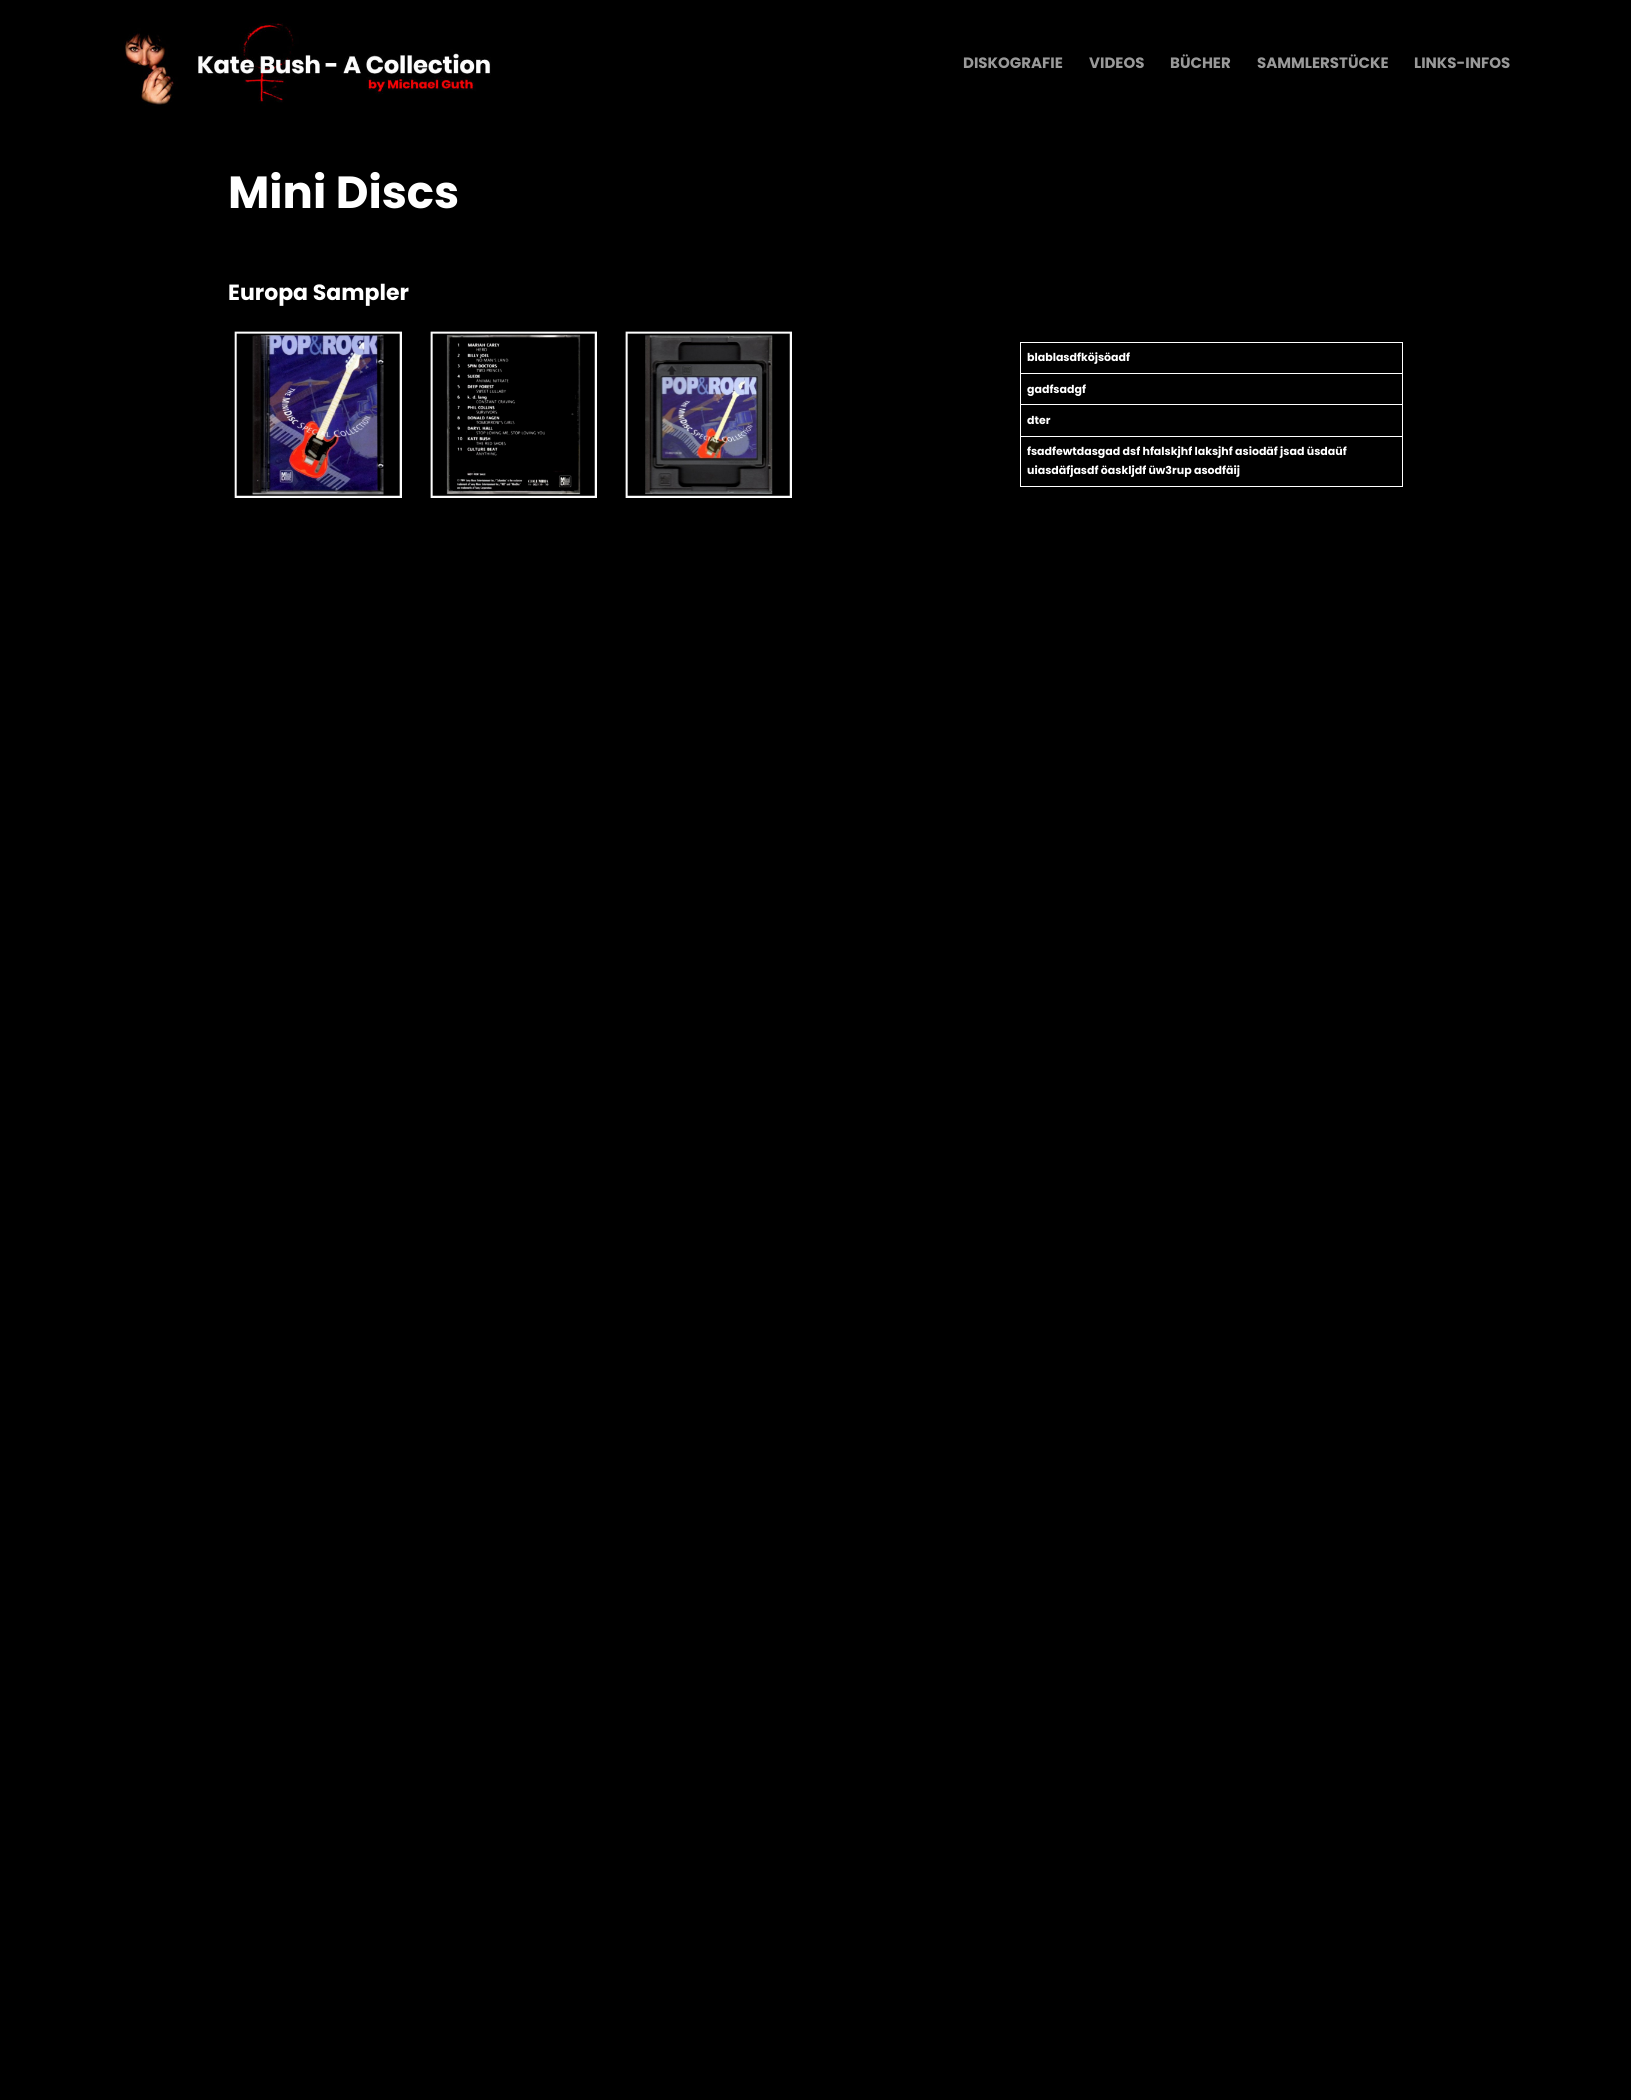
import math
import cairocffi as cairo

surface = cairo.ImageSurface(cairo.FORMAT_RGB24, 1631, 2100)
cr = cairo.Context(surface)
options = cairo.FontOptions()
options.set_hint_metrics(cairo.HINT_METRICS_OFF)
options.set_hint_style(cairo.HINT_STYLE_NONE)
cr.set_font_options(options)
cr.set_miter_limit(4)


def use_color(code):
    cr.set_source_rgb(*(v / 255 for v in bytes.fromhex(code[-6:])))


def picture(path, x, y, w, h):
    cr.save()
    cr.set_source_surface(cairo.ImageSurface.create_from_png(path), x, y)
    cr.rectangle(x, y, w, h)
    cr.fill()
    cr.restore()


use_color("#000000")
cr.paint()
picture("img1.png", 124, 23, 367, 83)
cr.select_font_face("Poppins", cairo.FONT_SLANT_NORMAL, cairo.FONT_WEIGHT_BOLD)
cr.set_font_size(15)
use_color("#999999")
cr.move_to(963, 68)
cr.show_text("DISKOGRAFIE")
cr.move_to(1089, 68)
cr.show_text("VIDEOS")
cr.move_to(1170, 68)
cr.show_text("BÜCHER")
cr.move_to(1257, 68)
cr.show_text("SAMMLERSTÜCKE")
cr.move_to(1414, 68)
cr.show_text("LINKS-INFOS")
cr.set_font_size(45)
use_color("#ffffff")
cr.move_to(228, 208)
cr.show_text("Mini Discs")
cr.set_font_size(22)
cr.move_to(228, 300)
cr.show_text("Europa Sampler")
picture("img2.png", 234, 331, 168, 167)
picture("img3.png", 430, 331, 167, 167)
picture("img4.png", 625, 331, 167, 167)
cr.rectangle(1020, 342, 383, 1)
cr.fill()
cr.rectangle(1020, 373, 383, 1)
cr.fill()
cr.rectangle(1020, 404, 383, 1)
cr.fill()
cr.rectangle(1020, 436, 383, 1)
cr.fill()
cr.rectangle(1402, 436, 1, 51)
cr.fill()
cr.rectangle(1402, 404, 1, 33)
cr.fill()
cr.rectangle(1402, 373, 1, 32)
cr.fill()
cr.rectangle(1402, 342, 1, 32)
cr.fill()
cr.rectangle(1020, 486, 383, 1)
cr.fill()
cr.rectangle(1020, 436, 1, 51)
cr.fill()
cr.rectangle(1020, 404, 1, 33)
cr.fill()
cr.rectangle(1020, 373, 1, 32)
cr.fill()
cr.rectangle(1020, 342, 1, 32)
cr.fill()
cr.set_font_size(11)
cr.move_to(1027, 361)
cr.show_text("blablasdfköjsöadf")
cr.move_to(1027, 393)
cr.show_text("gadfsadgf")
cr.move_to(1027, 424)
cr.show_text("dter")
cr.move_to(1027, 455)
cr.show_text("fsadfewtdasgad dsf hfalskjhf laksjhf asiodäf jsad üsdaüf")
cr.move_to(1027, 474)
cr.show_text("uiasdäfjasdf öaskljdf üw3rup asodfäij")
surface.write_to_png("result.png")
